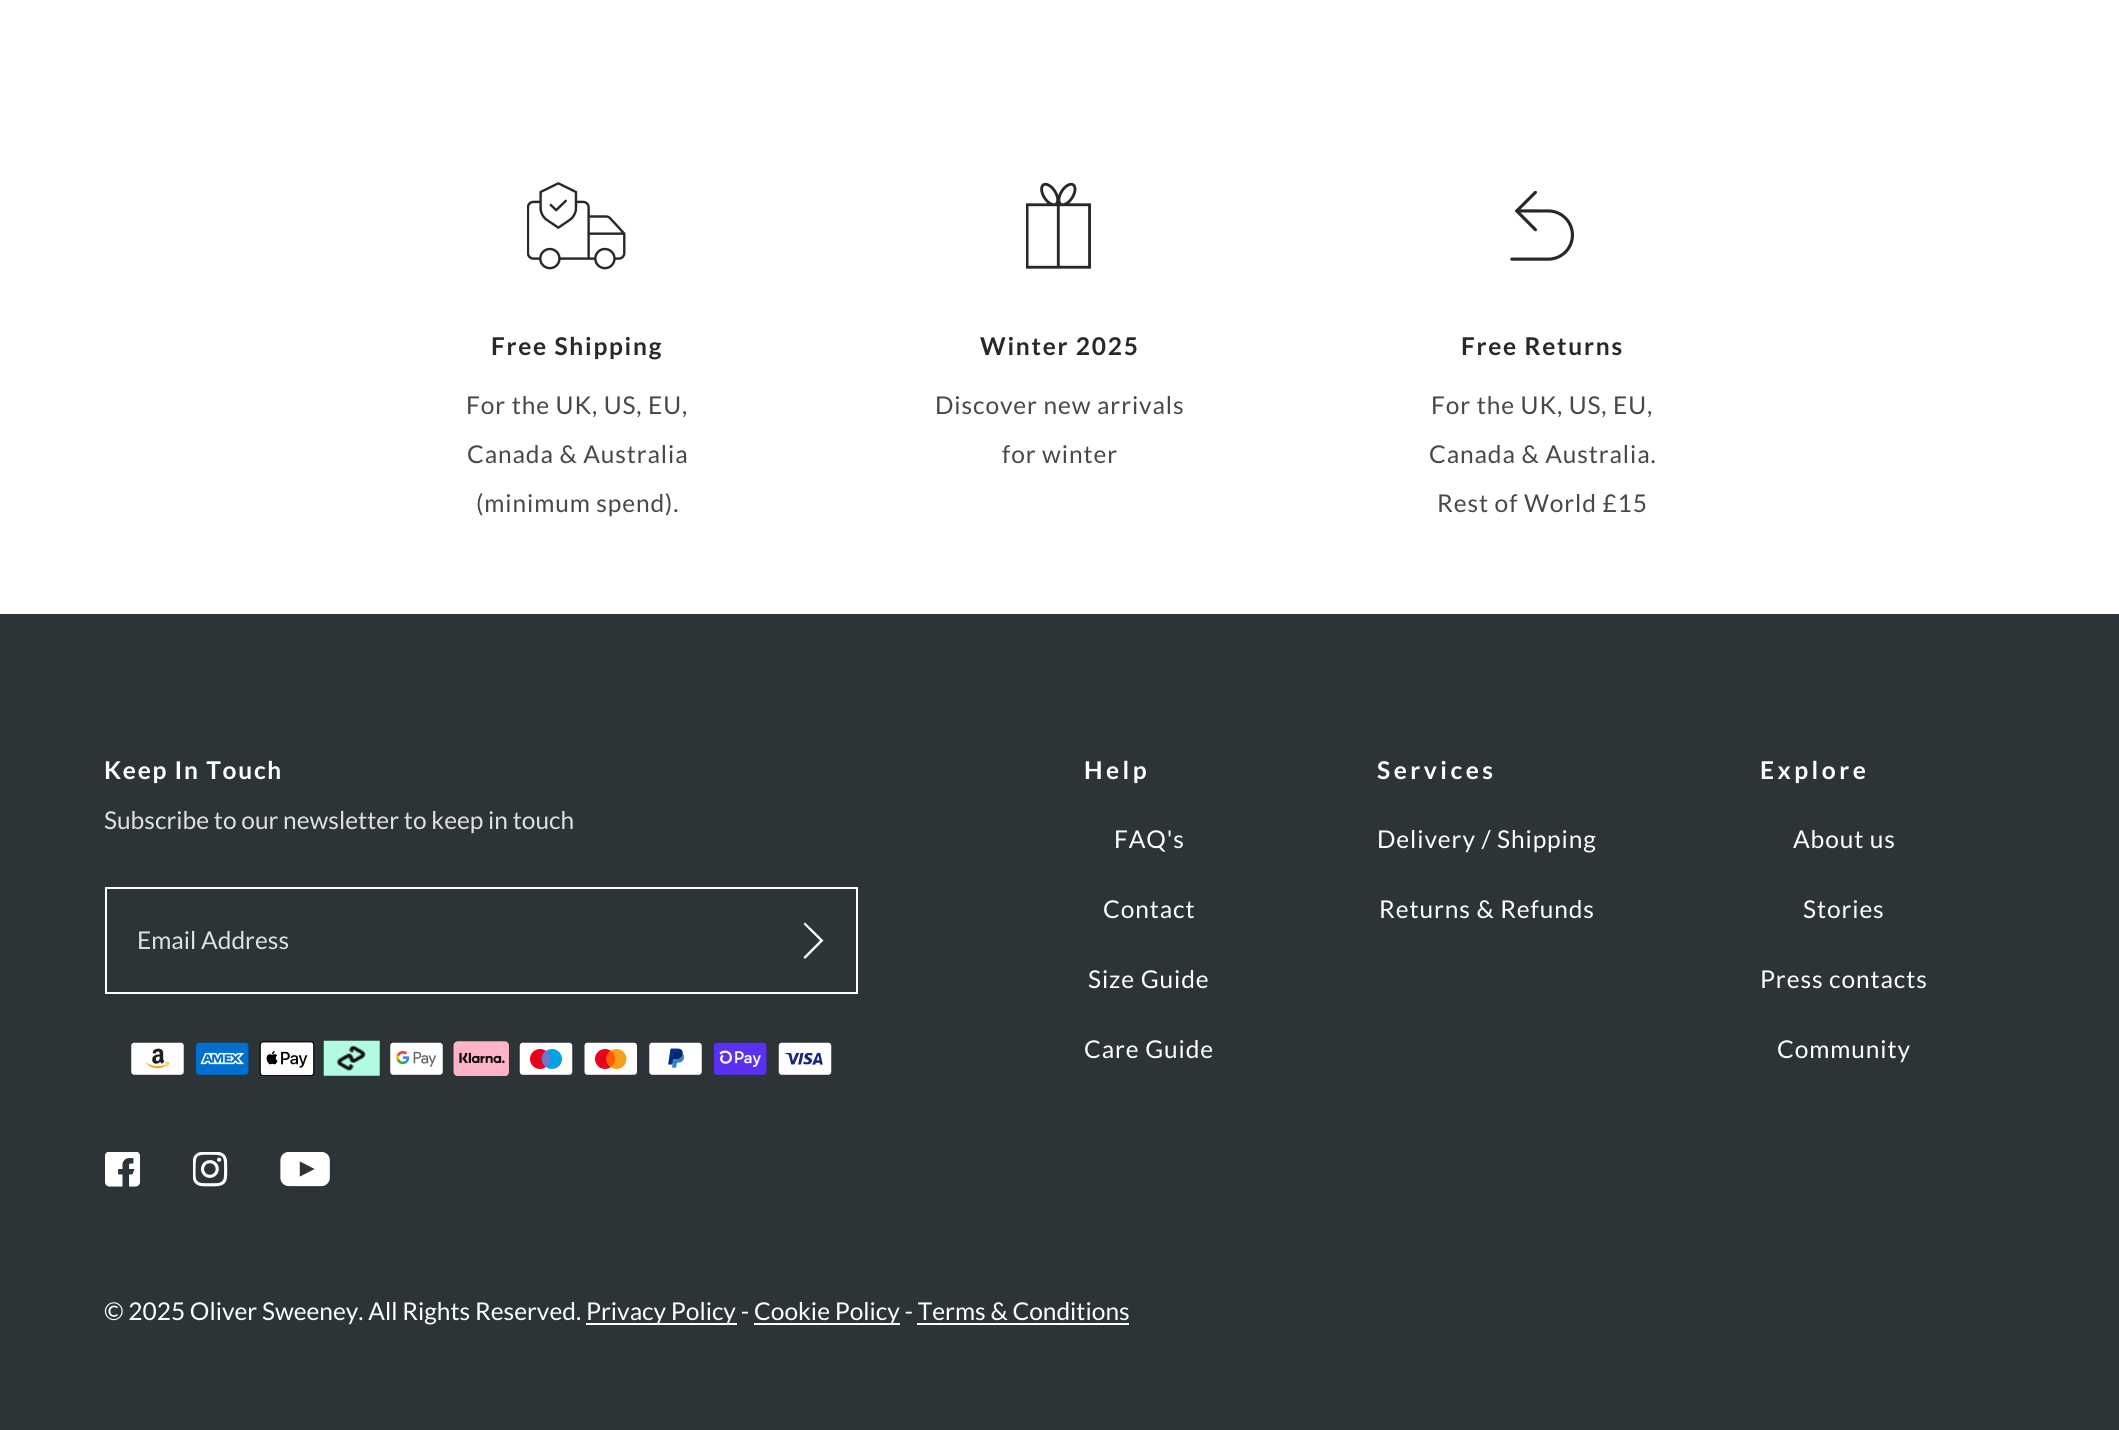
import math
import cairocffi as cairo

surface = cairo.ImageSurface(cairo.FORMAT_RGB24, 2119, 1430)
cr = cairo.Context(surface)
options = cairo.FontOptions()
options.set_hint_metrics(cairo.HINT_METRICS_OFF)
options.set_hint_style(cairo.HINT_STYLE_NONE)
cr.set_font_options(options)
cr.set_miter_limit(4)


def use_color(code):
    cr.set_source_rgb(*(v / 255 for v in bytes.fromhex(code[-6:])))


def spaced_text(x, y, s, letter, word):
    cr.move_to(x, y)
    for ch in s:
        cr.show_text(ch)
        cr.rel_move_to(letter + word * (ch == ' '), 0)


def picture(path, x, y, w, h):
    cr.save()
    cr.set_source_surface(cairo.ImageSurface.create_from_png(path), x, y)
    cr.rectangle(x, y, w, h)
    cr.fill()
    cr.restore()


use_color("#ffffff")
cr.paint()
picture("img1.png", 527, 182, 99, 88)
cr.select_font_face("Lato", cairo.FONT_SLANT_NORMAL, cairo.FONT_WEIGHT_BOLD)
cr.set_font_size(24.5)
use_color("#282827")
spaced_text(491, 355, "Free Shipping", 1.75, 0)
cr.select_font_face("Lato")
use_color("#484847")
spaced_text(466, 414, "For the UK, US, EU,", 0.9, 0)
spaced_text(467, 463, "Canada & Australia", 0.9, 0)
spaced_text(476, 512, "(minimum spend).", 0.9, 0)
picture("img2.png", 1026, 182, 65, 87)
cr.select_font_face("Lato", cairo.FONT_SLANT_NORMAL, cairo.FONT_WEIGHT_BOLD)
use_color("#282827")
spaced_text(980, 355, "Winter 2025", 1.75, 0)
cr.select_font_face("Lato")
use_color("#484847")
spaced_text(935, 414, "Discover new arrivals", 0.9, 0)
spaced_text(1002, 463, "for winter", 0.9, 0)
picture("img3.png", 1510, 191, 64, 70)
cr.select_font_face("Lato", cairo.FONT_SLANT_NORMAL, cairo.FONT_WEIGHT_BOLD)
use_color("#282827")
spaced_text(1461, 355, "Free Returns", 1.75, 0)
cr.select_font_face("Lato")
use_color("#484847")
spaced_text(1431, 414, "For the UK, US, EU,", 0.9, 0)
spaced_text(1429, 463, "Canada & Australia.", 0.9, 0)
spaced_text(1437, 512, "Rest of World £15", 0.9, 0)
use_color("#2c3437")
cr.rectangle(0, 614, 2119, 816)
cr.fill()
cr.select_font_face("Lato", cairo.FONT_SLANT_NORMAL, cairo.FONT_WEIGHT_BOLD)
use_color("#ffffff")
spaced_text(104, 779, "Keep In Touch", 1.75, 0)
cr.select_font_face("Lato")
use_color("#dfe1e1")
cr.move_to(104, 829)
cr.show_text("Subscribe to our newsletter to keep in touch")
cr.rectangle(106, 888, 751, 105)
use_color("#ffffff")
cr.stroke()
use_color("#dfe1e1")
cr.move_to(137, 949)
cr.show_text("Email Address")
use_color("#ffffff")
cr.new_path()
cr.move_to(805, 922.5)
cr.line_to(823.5, 940.5)
cr.line_to(805, 959)
cr.line_to(803.5, 957)
cr.line_to(820, 940.5)
cr.line_to(803.5, 924)
cr.close_path()
cr.fill()
picture("img4.png", 131, 1042, 53, 33)
picture("img5.png", 196, 1042, 53, 33)
picture("img6.png", 259, 1041, 56, 35)
picture("img7.png", 323, 1040, 57, 36)
picture("img8.png", 390, 1042, 53, 33)
picture("img9.png", 453, 1041, 56, 35)
picture("img10.png", 519, 1042, 54, 33)
picture("img11.png", 584, 1042, 53, 33)
picture("img12.png", 649, 1042, 53, 33)
picture("img13.png", 714, 1042, 53, 33)
picture("img14.png", 778, 1042, 54, 33)
picture("img15.png", 105, 1152, 35, 35)
picture("img16.png", 193, 1152, 35, 35)
picture("img17.png", 280, 1152, 50, 35)
cr.select_font_face("Lato", cairo.FONT_SLANT_NORMAL, cairo.FONT_WEIGHT_BOLD)
spaced_text(1084, 779, "Help", 3.5, 0)
cr.select_font_face("Lato")
spaced_text(1114, 848, "FAQ's", 0.9, 0)
spaced_text(1103, 918, "Contact", 0.9, 0)
spaced_text(1088, 988, "Size Guide", 0.9, 0)
spaced_text(1084, 1058, "Care Guide", 0.9, 0)
cr.select_font_face("Lato", cairo.FONT_SLANT_NORMAL, cairo.FONT_WEIGHT_BOLD)
spaced_text(1377, 779, "Services", 3.5, 0)
cr.select_font_face("Lato")
spaced_text(1377, 848, "Delivery / Shipping", 0.9, 0)
spaced_text(1379, 918, "Returns & Refunds", 0.9, 0)
cr.select_font_face("Lato", cairo.FONT_SLANT_NORMAL, cairo.FONT_WEIGHT_BOLD)
spaced_text(1760, 779, "Explore", 3.5, 0)
cr.select_font_face("Lato")
spaced_text(1793, 848, "About us", 0.9, 0)
spaced_text(1803, 918, "Stories", 0.9, 0)
spaced_text(1760, 988, "Press contacts", 0.9, 0)
spaced_text(1777, 1058, "Community", 0.9, 0)
cr.move_to(104, 1320)
cr.show_text("© 2025 Oliver Sweeney. All Rights Reserved.")
cr.rectangle(586, 1323, 151, 2)
cr.fill()
cr.move_to(586, 1320)
cr.show_text("Privacy Policy -")
cr.rectangle(754, 1323, 146, 2)
cr.fill()
cr.move_to(754, 1320)
cr.show_text("Cookie Policy - Terms & Conditions")
cr.rectangle(917, 1323, 212, 2)
cr.fill()
surface.write_to_png("result.png")
